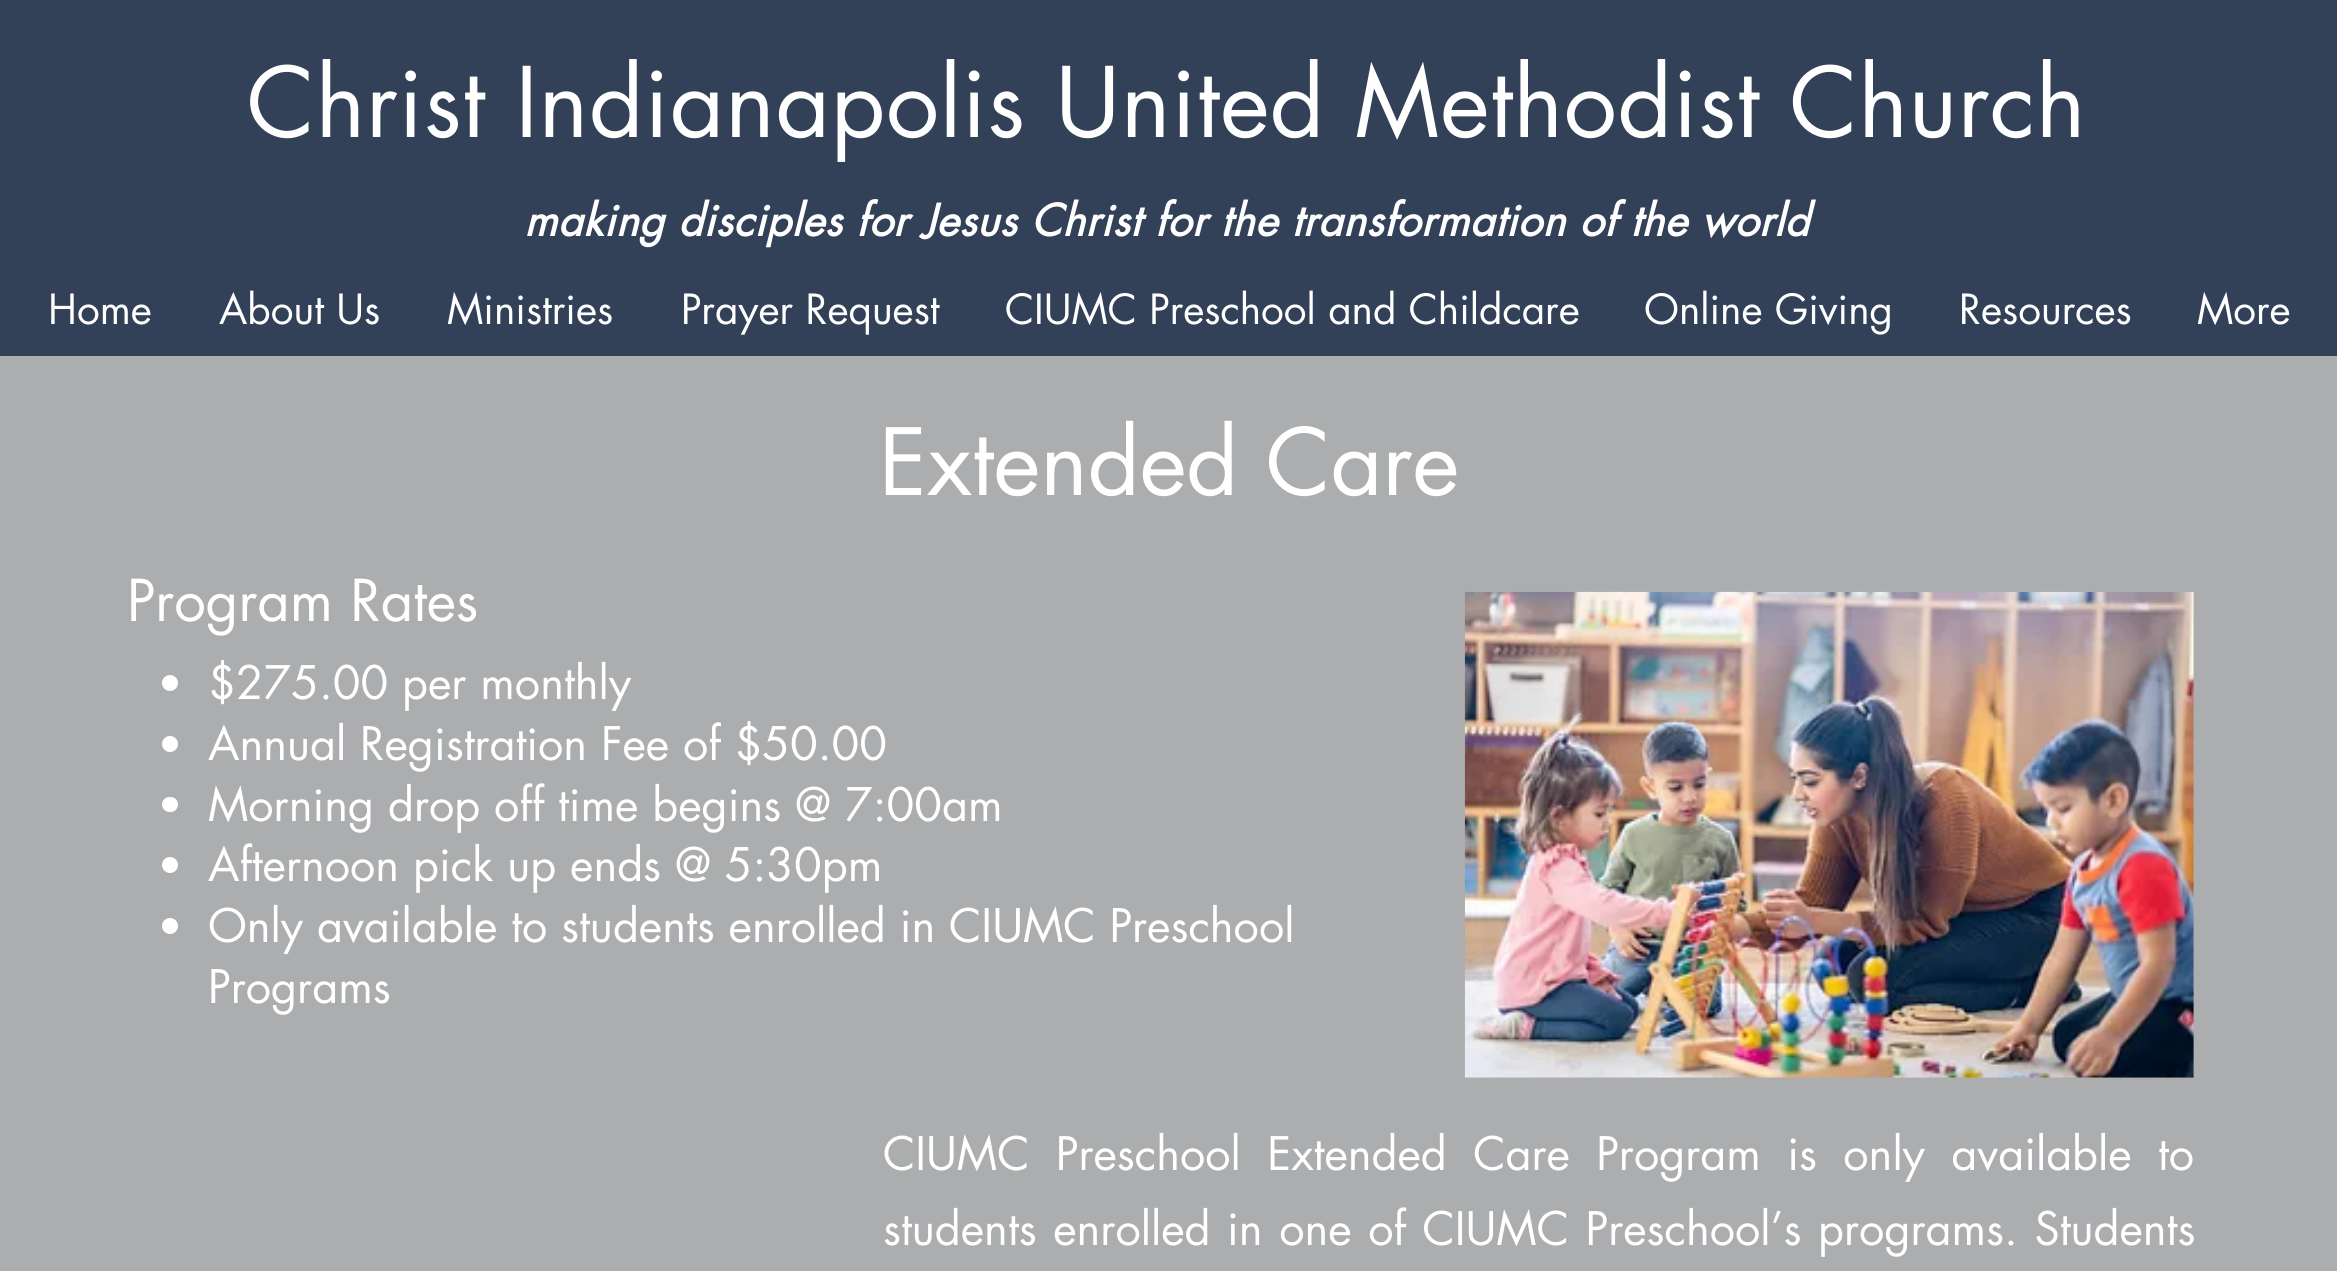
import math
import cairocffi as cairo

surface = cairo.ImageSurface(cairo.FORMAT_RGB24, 2337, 1271)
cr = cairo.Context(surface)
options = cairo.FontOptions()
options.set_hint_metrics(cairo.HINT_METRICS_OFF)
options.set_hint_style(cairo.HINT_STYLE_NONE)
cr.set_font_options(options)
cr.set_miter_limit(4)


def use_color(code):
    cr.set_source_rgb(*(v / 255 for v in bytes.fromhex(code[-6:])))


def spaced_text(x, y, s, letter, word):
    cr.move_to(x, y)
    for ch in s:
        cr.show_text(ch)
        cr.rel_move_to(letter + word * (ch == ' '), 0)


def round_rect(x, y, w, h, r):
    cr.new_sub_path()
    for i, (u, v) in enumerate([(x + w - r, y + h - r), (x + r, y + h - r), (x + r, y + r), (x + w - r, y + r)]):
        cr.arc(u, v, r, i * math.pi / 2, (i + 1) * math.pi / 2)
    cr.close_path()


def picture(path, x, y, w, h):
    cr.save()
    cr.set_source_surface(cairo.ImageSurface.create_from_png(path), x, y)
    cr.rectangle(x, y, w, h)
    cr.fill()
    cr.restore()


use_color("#acadae")
cr.paint()
use_color("#324158")
cr.rectangle(0, 0, 2337, 356)
cr.fill()
cr.select_font_face("futura")
cr.set_font_size(94.5)
use_color("#ffffff")
spaced_text(247, 137, "Christ Indianapolis United Methodist Church", 0.67, 0)
cr.select_font_face("futura", cairo.FONT_SLANT_ITALIC, cairo.FONT_WEIGHT_BOLD)
cr.set_font_size(42.75)
spaced_text(524, 236, "making disciples for Jesus Christ for the transformation of the world", 0.67, 0)
cr.select_font_face("futura")
cr.set_font_size(40.5)
cr.move_to(48, 324)
cr.show_text("Home")
cr.move_to(219, 324)
cr.show_text("About Us")
cr.move_to(447, 324)
cr.show_text("Ministries")
cr.move_to(681, 324)
cr.show_text("Prayer Request")
cr.move_to(1005, 324)
cr.show_text("CIUMC Preschool and Childcare")
cr.move_to(1644, 324)
cr.show_text("Online Giving")
cr.move_to(1959, 324)
cr.show_text("Resources")
cr.move_to(2197, 324)
cr.show_text("More")
cr.set_font_size(90)
cr.move_to(879, 495)
cr.show_text("Extended Care")
cr.set_font_size(56.25)
cr.move_to(127, 621)
cr.show_text("Program Rates")
picture("img1.png", 1464, 591, 730, 487)
cr.arc(170, 683, 8, 0, 2 * math.pi)
cr.fill()
cr.set_font_size(45)
cr.move_to(208, 699)
cr.show_text("$275.00 per monthly")
cr.new_path()
cr.arc(170, 744, 8, 0, 2 * math.pi)
cr.fill()
cr.move_to(208, 760)
cr.show_text("Annual Registration Fee of $50.00")
round_rect(162, 797, 16, 15, 7.5)
cr.fill()
cr.move_to(208, 821)
cr.show_text("Morning drop off time begins @ 7:00am")
cr.new_path()
cr.arc(170, 865, 8, 0, 2 * math.pi)
cr.fill()
cr.move_to(208, 881)
cr.show_text("Afternoon pick up ends @ 5:30pm")
cr.new_path()
cr.arc(170, 926, 8, 0, 2 * math.pi)
cr.fill()
cr.move_to(208, 942)
cr.show_text("Only available to students enrolled in CIUMC Preschool")
cr.move_to(208, 1003)
cr.show_text("Programs")
spaced_text(883, 1170, "CIUMC Preschool Extended Care Program is only available to", 0, 12.5)
spaced_text(883, 1245, "students enrolled in one of CIUMC Preschool’s programs. Students", 0, 2.75)
surface.write_to_png("result.png")
